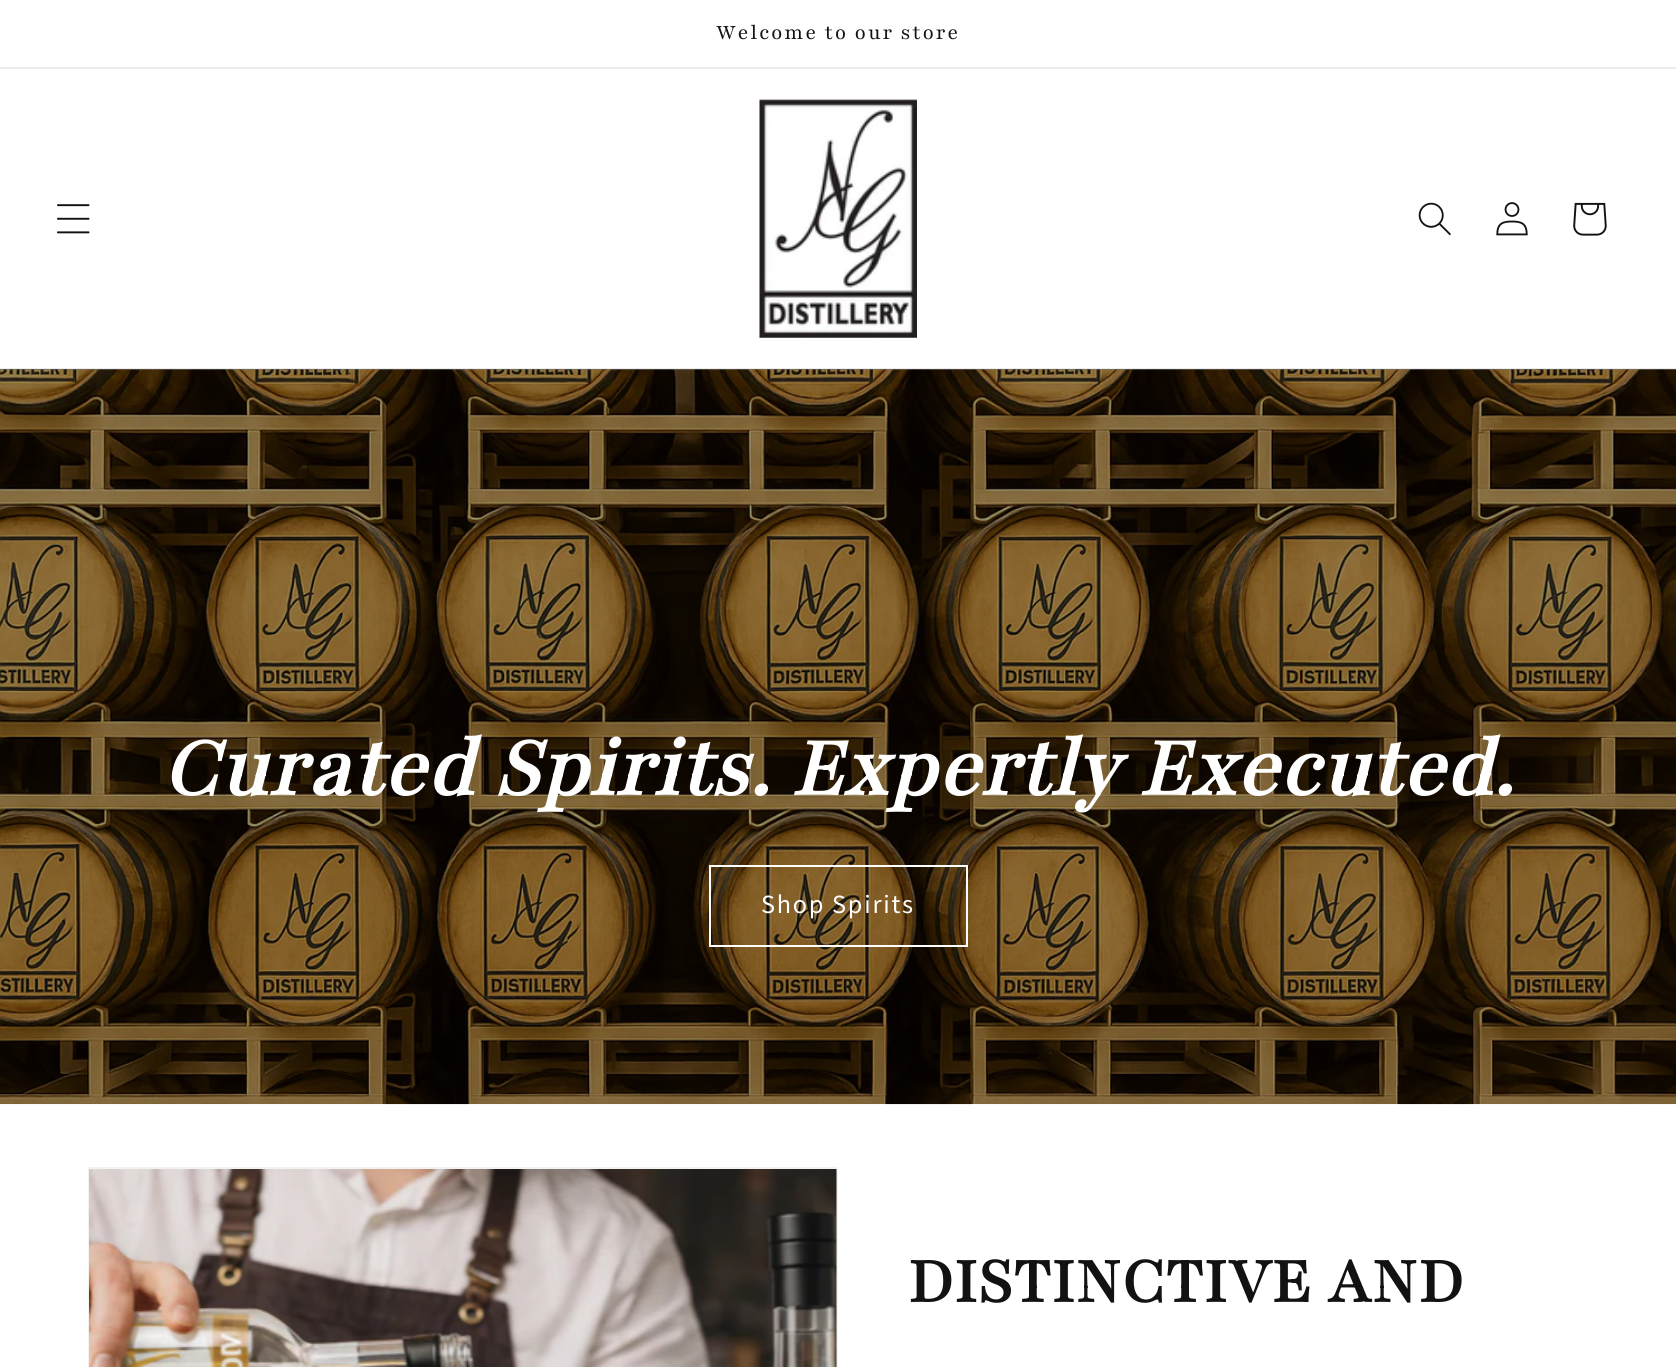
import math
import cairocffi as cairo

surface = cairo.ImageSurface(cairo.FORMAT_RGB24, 1676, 1367)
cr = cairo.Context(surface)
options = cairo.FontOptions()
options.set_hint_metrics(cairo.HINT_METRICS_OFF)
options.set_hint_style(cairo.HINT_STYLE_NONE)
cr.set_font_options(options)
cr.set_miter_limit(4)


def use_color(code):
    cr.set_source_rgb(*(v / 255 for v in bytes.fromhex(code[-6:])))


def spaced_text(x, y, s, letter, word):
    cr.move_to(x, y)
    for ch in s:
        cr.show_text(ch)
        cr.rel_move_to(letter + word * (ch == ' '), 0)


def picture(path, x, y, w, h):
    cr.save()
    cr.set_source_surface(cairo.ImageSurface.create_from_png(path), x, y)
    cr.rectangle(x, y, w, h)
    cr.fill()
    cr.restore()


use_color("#ffffff")
cr.paint()
use_color("#ececec")
cr.rectangle(0, 67, 1676, 2)
cr.fill()
cr.select_font_face("Playfair")
cr.set_font_size(22.75)
use_color("#121212")
spaced_text(716, 39, "Welcome to our store", 1.75, 0)
use_color("#8b8b8b")
cr.rectangle(0, 369, 1676, 1)
cr.fill()
picture("img6.png", 0, 369, 1676, 736)
cr.set_source_rgba(0.071, 0.071, 0.071, 0.08)
cr.rectangle(0, 368, 1676, 2)
cr.fill()
picture("img1.png", 57, 204, 33, 30)
picture("img2.png", 759, 99, 158, 239)
picture("img3.png", 1418, 202, 33, 34)
picture("img4.png", 1496, 202, 32, 34)
picture("img5.png", 1573, 202, 34, 34)
cr.select_font_face("Playfair", cairo.FONT_SLANT_ITALIC, cairo.FONT_WEIGHT_BOLD)
cr.set_font_size(91)
use_color("#ffffff")
spaced_text(162, 795, "Curated Spirits. Expertly Executed.", 1.05, 0)
cr.rectangle(710, 866, 257, 80)
cr.stroke()
cr.select_font_face("Source Sans Pro")
cr.set_font_size(26.25)
spaced_text(761, 913, "Shop Spirits", 1.75, 0)
cr.rectangle(89, 1168, 748, 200)
use_color("#f3f3f3")
cr.stroke()
picture("img7.png", 89, 1169, 748, 198)
cr.select_font_face("Playfair", cairo.FONT_SLANT_NORMAL, cairo.FONT_WEIGHT_BOLD)
cr.set_font_size(70)
use_color("#121212")
spaced_text(908, 1302, "DISTINCTIVE AND", 1.05, 0)
surface.write_to_png("result.png")
